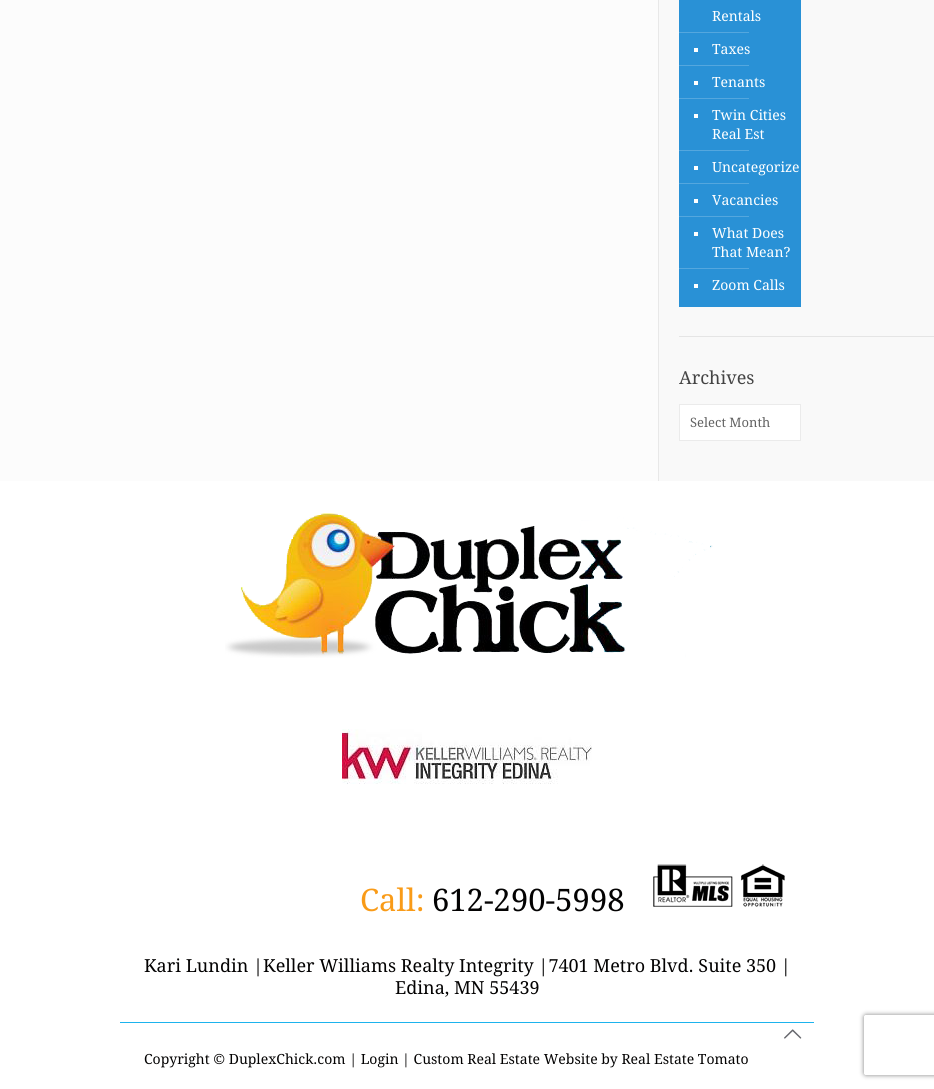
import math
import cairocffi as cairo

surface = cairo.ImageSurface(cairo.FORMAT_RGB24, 934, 1089)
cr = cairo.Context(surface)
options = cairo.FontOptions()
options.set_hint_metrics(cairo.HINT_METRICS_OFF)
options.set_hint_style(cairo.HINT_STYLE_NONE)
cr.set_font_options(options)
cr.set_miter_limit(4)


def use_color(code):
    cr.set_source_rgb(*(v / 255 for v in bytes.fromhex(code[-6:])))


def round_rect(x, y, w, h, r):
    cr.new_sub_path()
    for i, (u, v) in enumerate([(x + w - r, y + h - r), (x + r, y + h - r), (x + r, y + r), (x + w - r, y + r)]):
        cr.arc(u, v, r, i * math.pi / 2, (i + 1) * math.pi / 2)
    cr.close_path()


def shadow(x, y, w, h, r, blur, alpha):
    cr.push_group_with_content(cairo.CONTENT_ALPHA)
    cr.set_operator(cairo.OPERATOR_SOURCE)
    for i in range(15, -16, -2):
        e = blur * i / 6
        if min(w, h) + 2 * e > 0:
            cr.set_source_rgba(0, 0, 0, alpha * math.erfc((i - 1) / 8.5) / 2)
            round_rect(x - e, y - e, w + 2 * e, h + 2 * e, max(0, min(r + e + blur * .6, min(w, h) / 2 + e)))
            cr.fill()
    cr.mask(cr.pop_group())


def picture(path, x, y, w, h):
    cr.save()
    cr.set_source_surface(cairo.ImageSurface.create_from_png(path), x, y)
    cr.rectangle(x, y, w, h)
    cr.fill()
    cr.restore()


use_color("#fcfcfc")
cr.paint()
use_color("#e8e8e8")
cr.rectangle(658, 0, 1, 481)
cr.fill()
use_color("#f9f9f9")
cr.rectangle(659, 0, 275, 481)
cr.fill()
use_color("#2991d6")
cr.rectangle(679, 0, 122, 307)
cr.fill()
cr.select_font_face("Droid Serif")
cr.set_font_size(14)
use_color("#ffffff")
cr.move_to(712, 21)
cr.show_text("Rentals")
use_color("#54a7de")
cr.rectangle(679, 32, 70, 1)
cr.fill()
use_color("#ffffff")
cr.rectangle(694, 48, 4, 4)
cr.fill()
cr.move_to(712, 54)
cr.show_text("Taxes")
use_color("#54a7de")
cr.rectangle(679, 65, 70, 1)
cr.fill()
use_color("#ffffff")
cr.rectangle(694, 81, 4, 4)
cr.fill()
cr.move_to(712, 87)
cr.show_text("Tenants")
use_color("#54a7de")
cr.rectangle(679, 98, 70, 1)
cr.fill()
use_color("#ffffff")
cr.rectangle(694, 114, 4, 4)
cr.fill()
cr.move_to(712, 120)
cr.show_text("Twin Cities")
cr.move_to(712, 139)
cr.show_text("Real Est")
use_color("#54a7de")
cr.rectangle(679, 150, 70, 1)
cr.fill()
use_color("#ffffff")
cr.rectangle(694, 166, 4, 4)
cr.fill()
cr.move_to(712, 172)
cr.show_text("Uncategorize")
use_color("#54a7de")
cr.rectangle(679, 183, 70, 1)
cr.fill()
use_color("#ffffff")
cr.rectangle(694, 199, 4, 4)
cr.fill()
cr.move_to(712, 205)
cr.show_text("Vacancies")
use_color("#54a7de")
cr.rectangle(679, 216, 70, 1)
cr.fill()
use_color("#ffffff")
cr.rectangle(694, 232, 4, 4)
cr.fill()
cr.move_to(712, 238)
cr.show_text("What Does")
cr.move_to(712, 257)
cr.show_text("That Mean?")
use_color("#54a7de")
cr.rectangle(679, 268, 70, 1)
cr.fill()
use_color("#ffffff")
cr.rectangle(694, 284, 4, 4)
cr.fill()
cr.move_to(712, 290)
cr.show_text("Zoom Calls")
use_color("#e5e5e5")
cr.rectangle(679, 336, 255, 1)
cr.fill()
cr.set_font_size(18)
use_color("#444444")
cr.move_to(679, 384)
cr.show_text("Archives")
use_color("#ffffff")
cr.rectangle(679.5, 404.5, 121, 36)
cr.fill_preserve()
use_color("#ebebeb")
cr.set_line_width(1)
cr.stroke()
cr.set_font_size(13)
use_color("#626262")
cr.move_to(690, 427)
cr.show_text("Select Month")
use_color("#ffffff")
cr.rectangle(0, 481, 934, 608)
cr.fill()
picture("img1.png", 225, 513, 488, 145)
picture("img2.png", 342, 729, 250, 55)
cr.set_font_size(31)
use_color("#f99b18")
cr.move_to(360, 911)
cr.show_text("Call:")
use_color("#030202")
cr.move_to(432, 911)
cr.show_text("612-290-5998")
picture("img3.png", 653, 864, 132, 43)
cr.set_font_size(18)
cr.move_to(144, 972)
cr.show_text("Kari Lundin |Keller Williams Realty Integrity |7401 Metro Blvd. Suite 350 |")
cr.move_to(395, 994)
cr.show_text("Edina, MN 55439")
picture("img4.png", 784, 1029, 18, 10)
use_color("#1db3ed")
cr.rectangle(120, 1022, 694, 1)
cr.fill()
cr.set_font_size(14)
use_color("#030202")
cr.move_to(144, 1064)
cr.show_text("Copyright © DuplexChick.com | Login | Custom Real Estate Website by Real Estate Tomato")
cr.save()
cr.set_fill_rule(cairo.FILL_RULE_EVEN_ODD)
cr.new_path()
cr.move_to(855, 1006)
cr.line_to(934, 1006)
cr.line_to(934, 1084)
cr.line_to(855, 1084)
cr.close_path()
cr.move_to(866, 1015)
cr.line_to(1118, 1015)
cr.curve_to(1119, 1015, 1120, 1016, 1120, 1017)
cr.line_to(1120, 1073)
cr.curve_to(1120, 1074, 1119, 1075, 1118, 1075)
cr.line_to(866, 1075)
cr.curve_to(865, 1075, 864, 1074, 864, 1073)
cr.line_to(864, 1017)
cr.curve_to(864, 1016, 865, 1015, 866, 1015)
cr.close_path()
cr.clip()
use_color("#808080")
shadow(864, 1015, 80, 60, 2, 2.5, 1)
cr.restore()
surface.write_to_png("result.png")
